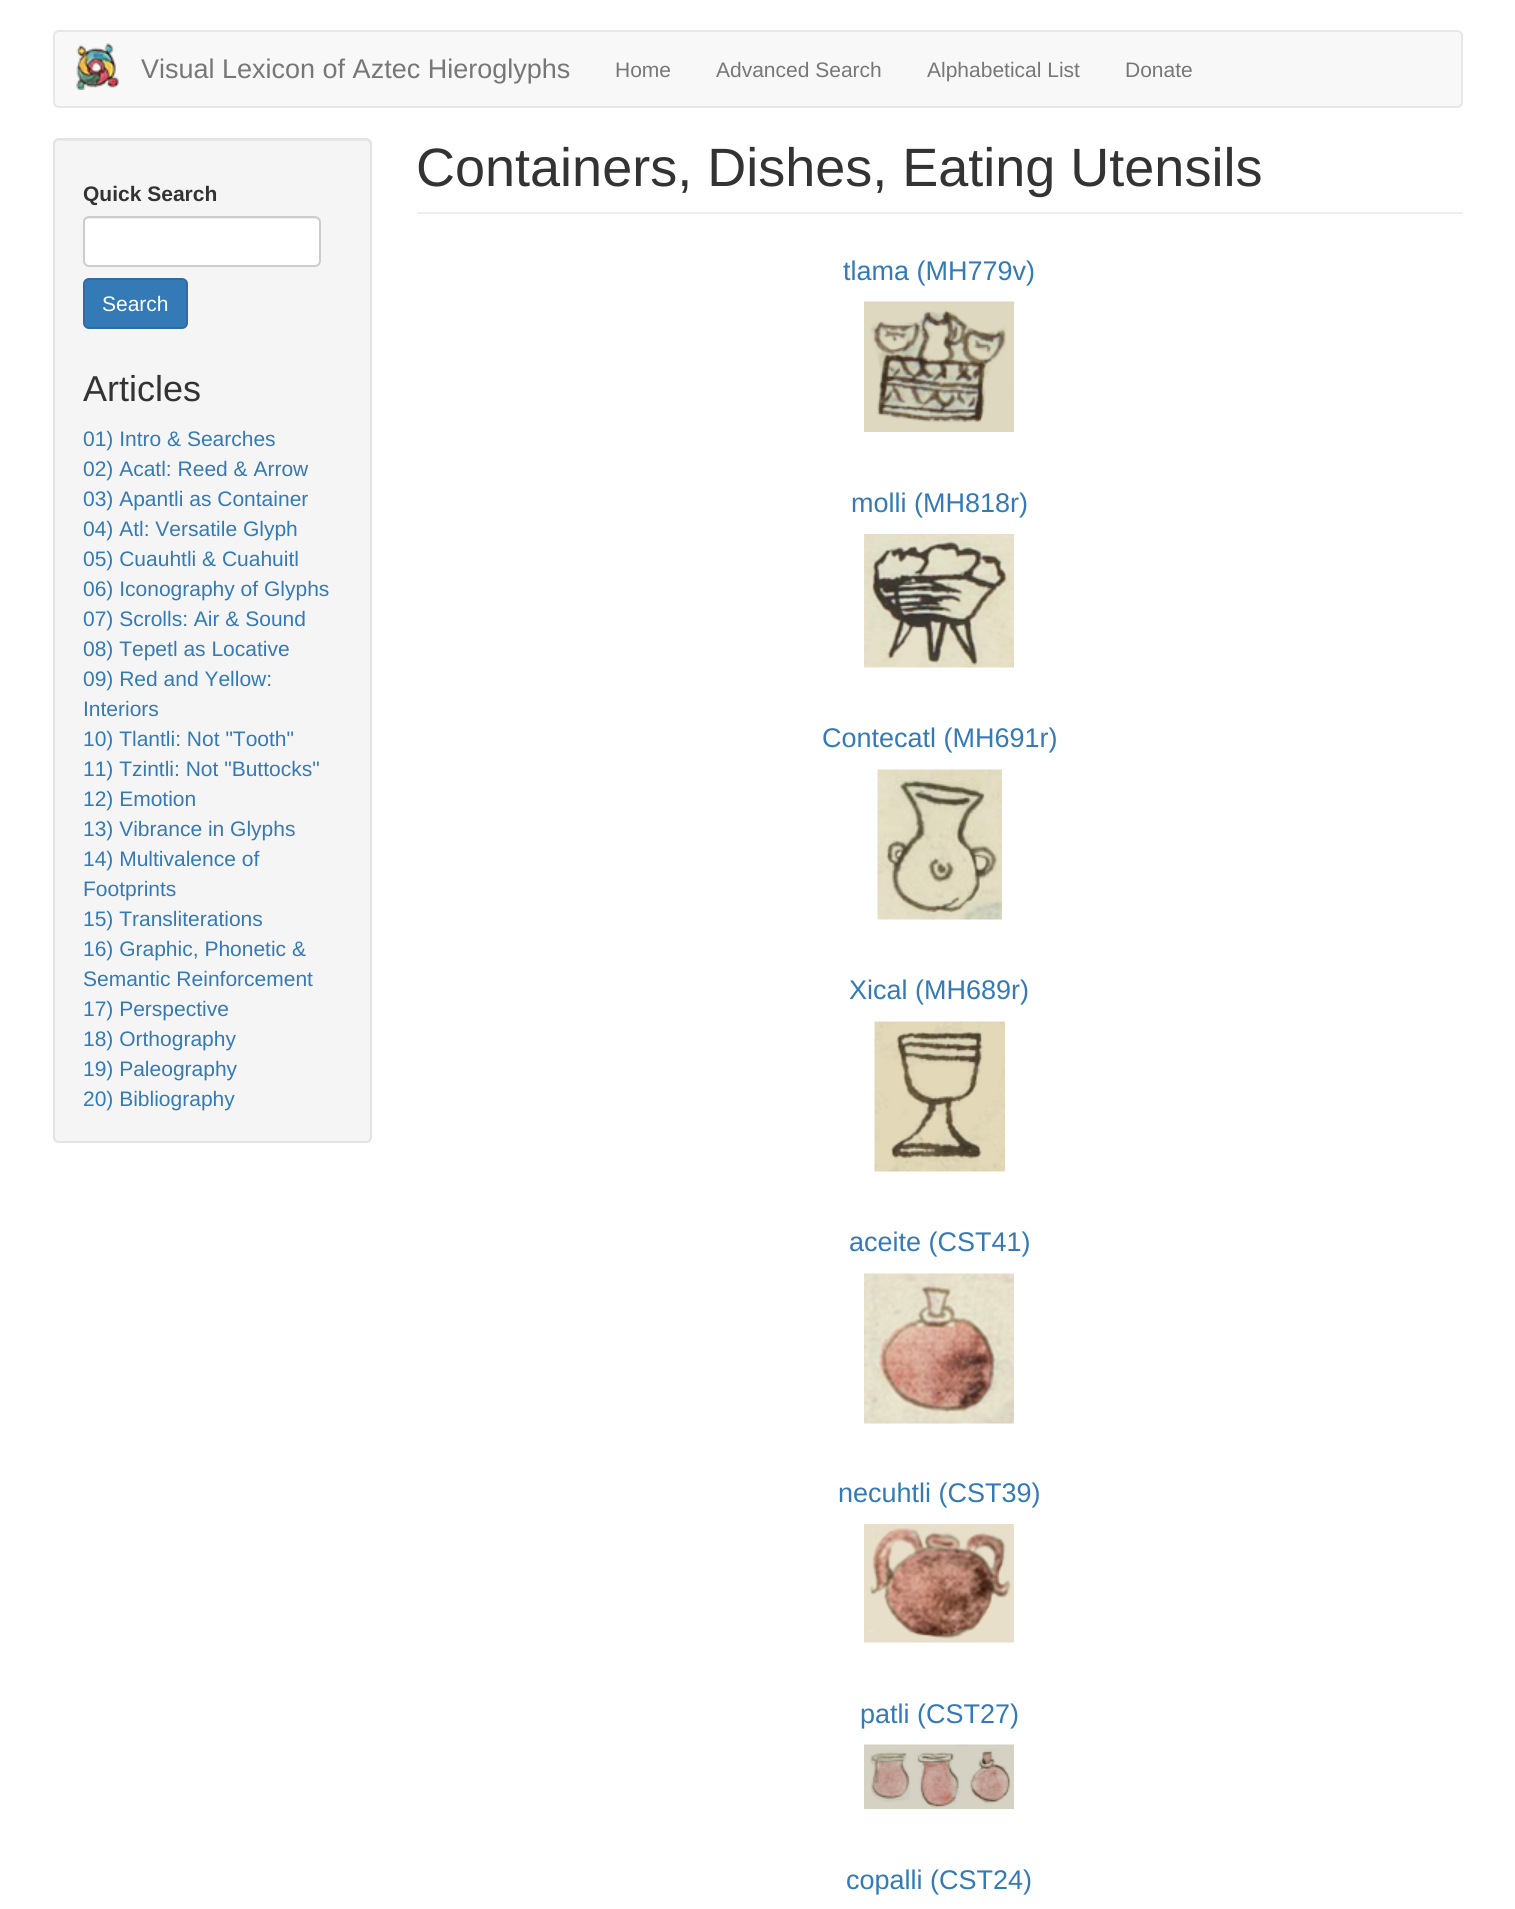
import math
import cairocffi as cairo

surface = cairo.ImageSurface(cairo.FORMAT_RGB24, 1515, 1909)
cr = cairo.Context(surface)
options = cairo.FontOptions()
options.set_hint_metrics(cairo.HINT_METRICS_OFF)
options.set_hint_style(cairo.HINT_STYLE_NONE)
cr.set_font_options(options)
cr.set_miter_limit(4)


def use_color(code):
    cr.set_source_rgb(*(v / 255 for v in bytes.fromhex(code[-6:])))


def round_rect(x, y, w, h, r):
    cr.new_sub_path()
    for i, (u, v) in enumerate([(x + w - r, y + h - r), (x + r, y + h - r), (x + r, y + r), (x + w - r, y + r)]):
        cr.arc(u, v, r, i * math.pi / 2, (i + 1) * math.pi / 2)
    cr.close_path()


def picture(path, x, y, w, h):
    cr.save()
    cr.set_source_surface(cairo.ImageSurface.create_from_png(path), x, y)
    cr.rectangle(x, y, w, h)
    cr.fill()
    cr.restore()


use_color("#ffffff")
cr.paint()
use_color("#f8f8f8")
round_rect(54, 31, 1408, 76, 5)
cr.fill_preserve()
use_color("#e7e7e7")
cr.stroke()
picture("img1.png", 76, 43, 43, 47)
cr.select_font_face("Liberation Sans")
cr.set_font_size(27)
use_color("#777777")
cr.move_to(141, 78)
cr.show_text("Visual Lexicon of Aztec Hieroglyphs")
cr.set_font_size(21)
cr.move_to(615, 77)
cr.show_text("Home")
cr.move_to(716, 77)
cr.show_text("Advanced Search")
cr.move_to(927, 77)
cr.show_text("Alphabetical List")
cr.move_to(1125, 77)
cr.show_text("Donate")
use_color("#f5f5f5")
round_rect(53, 138, 319, 1005, 6)
cr.fill()
use_color("#e9e9e9")
cr.new_path()
cr.move_to(58, 141)
cr.line_to(366, 141)
cr.curve_to(368, 141, 370, 143, 370, 146)
cr.line_to(370, 1138)
cr.line_to(369, 1141)
cr.curve_to(370, 1140, 371, 1138, 371, 1137)
cr.line_to(371, 145)
cr.curve_to(371, 142, 369, 140, 366, 140)
cr.line_to(59, 140)
cr.curve_to(56, 140, 54, 142, 54, 145)
cr.line_to(54, 146)
cr.curve_to(54, 143, 56, 141, 58, 141)
cr.close_path()
cr.fill()
round_rect(54, 139, 317, 1003, 5)
use_color("#e3e3e3")
cr.stroke()
cr.select_font_face("Liberation Sans", cairo.FONT_SLANT_NORMAL, cairo.FONT_WEIGHT_BOLD)
use_color("#333333")
cr.move_to(83, 201)
cr.show_text("Quick Search")
use_color("#ffffff")
round_rect(83, 216, 238, 51, 6)
cr.fill()
use_color("#ececec")
cr.new_path()
cr.move_to(88, 219)
cr.line_to(315, 219)
cr.curve_to(317, 219, 320, 221, 320, 224)
cr.line_to(320, 223)
cr.curve_to(320, 220, 318, 218, 315, 218)
cr.line_to(89, 218)
cr.curve_to(86, 218, 84, 220, 84, 223)
cr.line_to(84, 224)
cr.curve_to(84, 221, 86, 219, 88, 219)
cr.close_path()
cr.fill()
round_rect(84, 217, 236, 49, 5)
use_color("#cccccc")
cr.stroke()
use_color("#337ab7")
round_rect(84, 279, 103, 49, 5)
cr.fill_preserve()
use_color("#2e6da4")
cr.stroke()
cr.select_font_face("Liberation Sans")
use_color("#ffffff")
cr.move_to(102, 311)
cr.show_text("Search")
cr.set_font_size(36)
use_color("#333333")
cr.move_to(83, 401)
cr.show_text("Articles")
cr.set_font_size(21)
use_color("#337ab7")
cr.move_to(83, 446)
cr.show_text("01) Intro & Searches")
cr.move_to(83, 476)
cr.show_text("02) Acatl: Reed & Arrow")
cr.move_to(83, 506)
cr.show_text("03) Apantli as Container")
cr.move_to(83, 536)
cr.show_text("04) Atl: Versatile Glyph")
cr.move_to(83, 566)
cr.show_text("05) Cuauhtli & Cuahuitl")
cr.move_to(83, 596)
cr.show_text("06) Iconography of Glyphs")
cr.move_to(83, 626)
cr.show_text("07) Scrolls: Air & Sound")
cr.move_to(83, 656)
cr.show_text("08) Tepetl as Locative")
cr.move_to(83, 686)
cr.show_text("09) Red and Yellow:")
cr.move_to(83, 716)
cr.show_text("Interiors")
cr.move_to(83, 746)
cr.show_text("10) Tlantli: Not \"Tooth\"")
cr.move_to(83, 776)
cr.show_text("11) Tzintli: Not \"Buttocks\"")
cr.move_to(83, 806)
cr.show_text("12) Emotion")
cr.move_to(83, 836)
cr.show_text("13) Vibrance in Glyphs")
cr.move_to(83, 866)
cr.show_text("14) Multivalence of")
cr.move_to(83, 896)
cr.show_text("Footprints")
cr.move_to(83, 926)
cr.show_text("15) Transliterations")
cr.move_to(83, 956)
cr.show_text("16) Graphic, Phonetic &")
cr.move_to(83, 986)
cr.show_text("Semantic Reinforcement")
cr.move_to(83, 1016)
cr.show_text("17) Perspective")
cr.move_to(83, 1046)
cr.show_text("18) Orthography")
cr.move_to(83, 1076)
cr.show_text("19) Paleography")
cr.move_to(83, 1106)
cr.show_text("20) Bibliography")
use_color("#eeeeee")
cr.rectangle(417, 212, 1046, 2)
cr.fill()
cr.set_font_size(54)
use_color("#333333")
cr.move_to(416, 186)
cr.show_text("Containers, Dishes, Eating Utensils")
cr.set_font_size(27)
use_color("#337ab7")
cr.move_to(843, 280)
cr.show_text("tlama (MH779v)")
picture("img2.png", 864, 301, 150, 131)
cr.move_to(851, 512)
cr.show_text("molli (MH818r)")
picture("img3.png", 864, 534, 150, 134)
cr.move_to(822, 747)
cr.show_text("Contecatl (MH691r)")
picture("img4.png", 877, 769, 125, 151)
cr.move_to(849, 999)
cr.show_text("Xical (MH689r)")
picture("img5.png", 874, 1021, 131, 151)
cr.move_to(849, 1251)
cr.show_text("aceite (CST41)")
picture("img6.png", 864, 1273, 150, 151)
cr.move_to(838, 1502)
cr.show_text("necuhtli (CST39)")
picture("img7.png", 864, 1524, 150, 119)
cr.move_to(860, 1723)
cr.show_text("patli (CST27)")
picture("img8.png", 864, 1744, 150, 65)
cr.move_to(846, 1889)
cr.show_text("copalli (CST24)")
surface.write_to_png("result.png")
